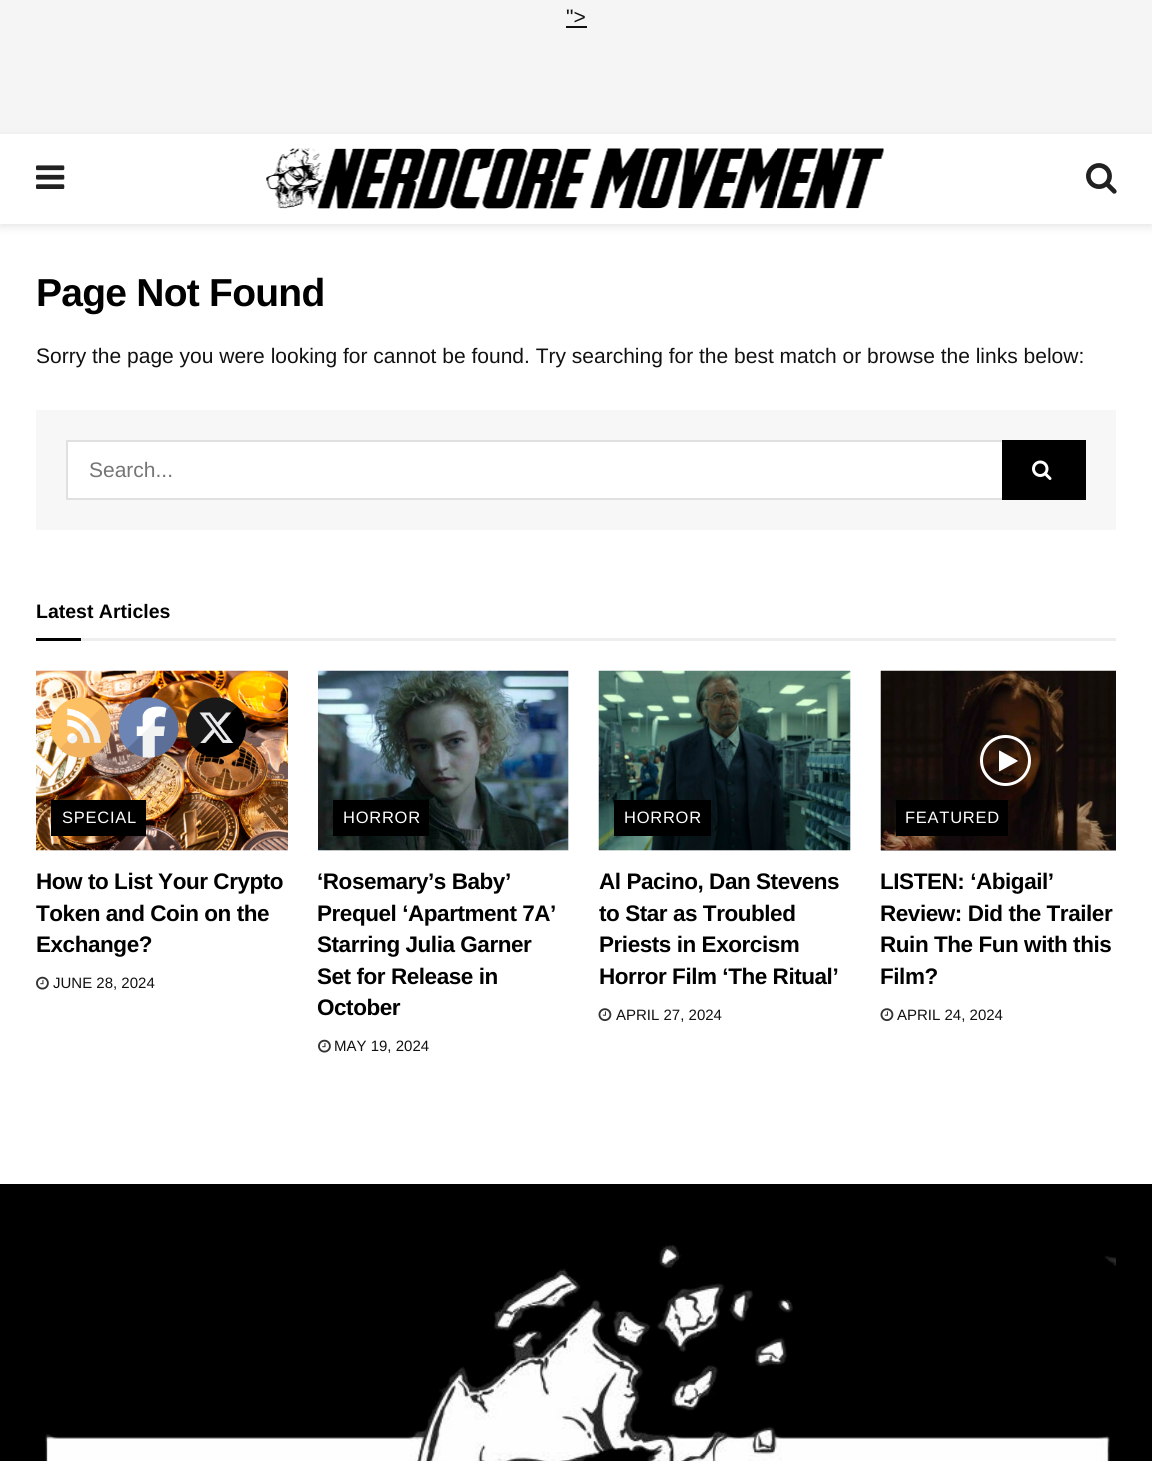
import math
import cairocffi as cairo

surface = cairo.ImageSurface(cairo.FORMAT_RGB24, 1152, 1461)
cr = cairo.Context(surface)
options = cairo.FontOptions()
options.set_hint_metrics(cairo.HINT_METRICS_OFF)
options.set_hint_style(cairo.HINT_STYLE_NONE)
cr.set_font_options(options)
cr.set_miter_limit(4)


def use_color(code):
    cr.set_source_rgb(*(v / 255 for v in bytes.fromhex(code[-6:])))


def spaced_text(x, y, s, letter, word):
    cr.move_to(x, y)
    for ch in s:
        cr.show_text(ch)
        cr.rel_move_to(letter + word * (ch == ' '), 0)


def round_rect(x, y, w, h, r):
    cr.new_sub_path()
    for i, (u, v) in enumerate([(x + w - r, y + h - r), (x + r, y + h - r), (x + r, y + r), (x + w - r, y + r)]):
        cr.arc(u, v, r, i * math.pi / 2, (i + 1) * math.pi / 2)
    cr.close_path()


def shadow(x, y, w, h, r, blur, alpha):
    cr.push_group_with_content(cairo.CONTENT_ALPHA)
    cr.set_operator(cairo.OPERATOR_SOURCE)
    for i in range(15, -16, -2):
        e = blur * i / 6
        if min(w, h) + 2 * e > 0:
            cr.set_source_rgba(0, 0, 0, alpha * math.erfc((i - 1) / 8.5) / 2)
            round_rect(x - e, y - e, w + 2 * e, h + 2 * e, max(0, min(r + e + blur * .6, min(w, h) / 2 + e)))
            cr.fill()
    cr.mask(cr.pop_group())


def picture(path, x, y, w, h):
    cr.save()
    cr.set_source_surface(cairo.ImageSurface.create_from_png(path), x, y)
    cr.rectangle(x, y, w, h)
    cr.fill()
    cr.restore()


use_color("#ffffff")
cr.paint()
use_color("#f5f5f5")
cr.rectangle(0, 0, 1152, 134)
cr.fill()
cr.select_font_face("Liberation Sans")
cr.set_font_size(21)
use_color("#111111")
cr.move_to(566, 24)
cr.show_text("\">")
cr.rectangle(566, 26, 21, 2)
cr.fill()
use_color("#000000")
shadow(0, 137, 1152, 90, 0, 4.5, 0.1)
use_color("#ffffff")
cr.rectangle(0, 134, 1152, 90)
cr.fill()
picture("img1.png", 36, 165, 29, 24)
picture("img2.png", 266, 148, 618, 61)
picture("img3.png", 1086, 163, 31, 31)
cr.select_font_face("Liberation Sans", cairo.FONT_SLANT_NORMAL, cairo.FONT_WEIGHT_BOLD)
cr.set_font_size(39)
use_color("#000000")
spaced_text(36, 306, "Page Not Found", -0.75, 0)
cr.select_font_face("Liberation Sans")
cr.set_font_size(21)
use_color("#111111")
cr.move_to(36, 363)
cr.show_text("Sorry the page you were looking for cannot be found. Try searching for the best match or browse the links below:")
use_color("#f7f7f7")
cr.rectangle(36, 410, 1080, 120)
cr.fill()
use_color("#ffffff")
cr.rectangle(68, 442, 934, 56)
cr.fill()
cr.rectangle(67, 441, 1018, 58)
use_color("#e0e0e0")
cr.stroke()
use_color("#757575")
cr.move_to(89, 477)
cr.show_text("Search...")
use_color("#000000")
cr.rectangle(1002, 440, 84, 60)
cr.fill()
picture("img4.png", 1032, 460, 20, 20)
use_color("#eeeeee")
cr.rectangle(81, 638, 1035, 3)
cr.fill()
cr.select_font_face("Liberation Sans", cairo.FONT_SLANT_NORMAL, cairo.FONT_WEIGHT_BOLD)
cr.set_font_size(19.5)
use_color("#000000")
cr.move_to(36, 618)
cr.show_text("Latest Articles")
cr.rectangle(36, 638, 45, 3)
cr.fill()
use_color("#f7f7f7")
cr.rectangle(36, 850, 252, 1)
cr.fill()
picture("img5.png", 36, 670, 252, 181)
use_color("#000000")
cr.rectangle(51, 800, 95, 36)
cr.fill()
cr.select_font_face("Liberation Sans")
cr.set_font_size(16.5)
use_color("#ffffff")
spaced_text(62, 823, "SPECIAL", 0.75, 0)
cr.select_font_face("Liberation Sans", cairo.FONT_SLANT_NORMAL, cairo.FONT_WEIGHT_BOLD)
cr.set_font_size(22.5)
use_color("#000000")
spaced_text(36, 889, "How to List Your Crypto", -0.45, 0)
spaced_text(36, 921, "Token and Coin on the", -0.45, 0)
spaced_text(36, 952, "Exchange?", -0.45, 0)
picture("img6.png", 36, 976, 13, 14)
cr.select_font_face("Liberation Sans")
cr.set_font_size(15)
use_color("#111111")
cr.move_to(53, 988)
cr.show_text("JUNE 28, 2024")
use_color("#f7f7f7")
cr.rectangle(318, 671, 251, 180)
cr.fill()
picture("img7.png", 318, 670, 251, 181)
use_color("#000000")
cr.rectangle(333, 800, 96, 36)
cr.fill()
cr.set_font_size(16.5)
use_color("#ffffff")
spaced_text(343, 823, "HORROR", 0.75, 0)
cr.select_font_face("Liberation Sans", cairo.FONT_SLANT_NORMAL, cairo.FONT_WEIGHT_BOLD)
cr.set_font_size(22.5)
use_color("#000000")
spaced_text(317, 889, "‘Rosemary’s Baby’", -0.45, 0)
spaced_text(317, 921, "Prequel ‘Apartment 7A’", -0.45, 0)
spaced_text(317, 952, "Starring Julia Garner", -0.45, 0)
spaced_text(317, 984, "Set for Release in", -0.45, 0)
spaced_text(317, 1015, "October", -0.45, 0)
picture("img6.png", 318, 1039, 13, 14)
cr.select_font_face("Liberation Sans")
cr.set_font_size(15)
use_color("#111111")
cr.move_to(334, 1051)
cr.show_text("MAY 19, 2024")
use_color("#f7f7f7")
cr.rectangle(599, 671, 252, 180)
cr.fill()
picture("img8.png", 598, 670, 253, 181)
use_color("#000000")
cr.rectangle(614, 800, 97, 36)
cr.fill()
cr.set_font_size(16.5)
use_color("#ffffff")
spaced_text(624, 823, "HORROR", 0.75, 0)
cr.select_font_face("Liberation Sans", cairo.FONT_SLANT_NORMAL, cairo.FONT_WEIGHT_BOLD)
cr.set_font_size(22.5)
use_color("#000000")
spaced_text(599, 889, "Al Pacino, Dan Stevens", -0.45, 0)
spaced_text(599, 921, "to Star as Troubled", -0.45, 0)
spaced_text(599, 952, "Priests in Exorcism", -0.45, 0)
spaced_text(599, 984, "Horror Film ‘The Ritual’", -0.45, 0)
picture("img9.png", 598, 1008, 14, 14)
cr.select_font_face("Liberation Sans")
cr.set_font_size(15)
use_color("#111111")
cr.move_to(616, 1020)
cr.show_text("APRIL 27, 2024")
use_color("#adadad")
cr.rectangle(881, 850, 235, 1)
cr.fill()
picture("img10.png", 880, 670, 236, 181)
cr.arc(1005.5, 760.5, 24, 0, 2 * math.pi)
use_color("#ffffff")
cr.set_line_width(3)
cr.stroke()
picture("img11.png", 999, 750, 19, 22)
use_color("#000000")
cr.rectangle(896, 800, 112, 36)
cr.fill()
cr.set_font_size(16.5)
use_color("#ffffff")
spaced_text(905, 823, "FEATURED", 0.75, 0)
cr.select_font_face("Liberation Sans", cairo.FONT_SLANT_NORMAL, cairo.FONT_WEIGHT_BOLD)
cr.set_font_size(22.5)
use_color("#000000")
spaced_text(880, 889, "LISTEN: ‘Abigail’", -0.45, 0)
spaced_text(880, 921, "Review: Did the Trailer", -0.45, 0)
spaced_text(880, 952, "Ruin The Fun with this", -0.45, 0)
spaced_text(880, 984, "Film?", -0.45, 0)
picture("img9.png", 880, 1008, 14, 14)
cr.select_font_face("Liberation Sans")
cr.set_font_size(15)
use_color("#111111")
cr.move_to(897, 1020)
cr.show_text("APRIL 24, 2024")
use_color("#000000")
cr.rectangle(0, 1184, 1152, 277)
cr.fill()
picture("img12.png", 45, 1245, 1071, 216)
picture("img13.png", 51, 697, 60, 61)
picture("img14.png", 118, 697, 61, 61)
picture("img15.png", 186, 697, 60, 61)
surface.write_to_png("result.png")
